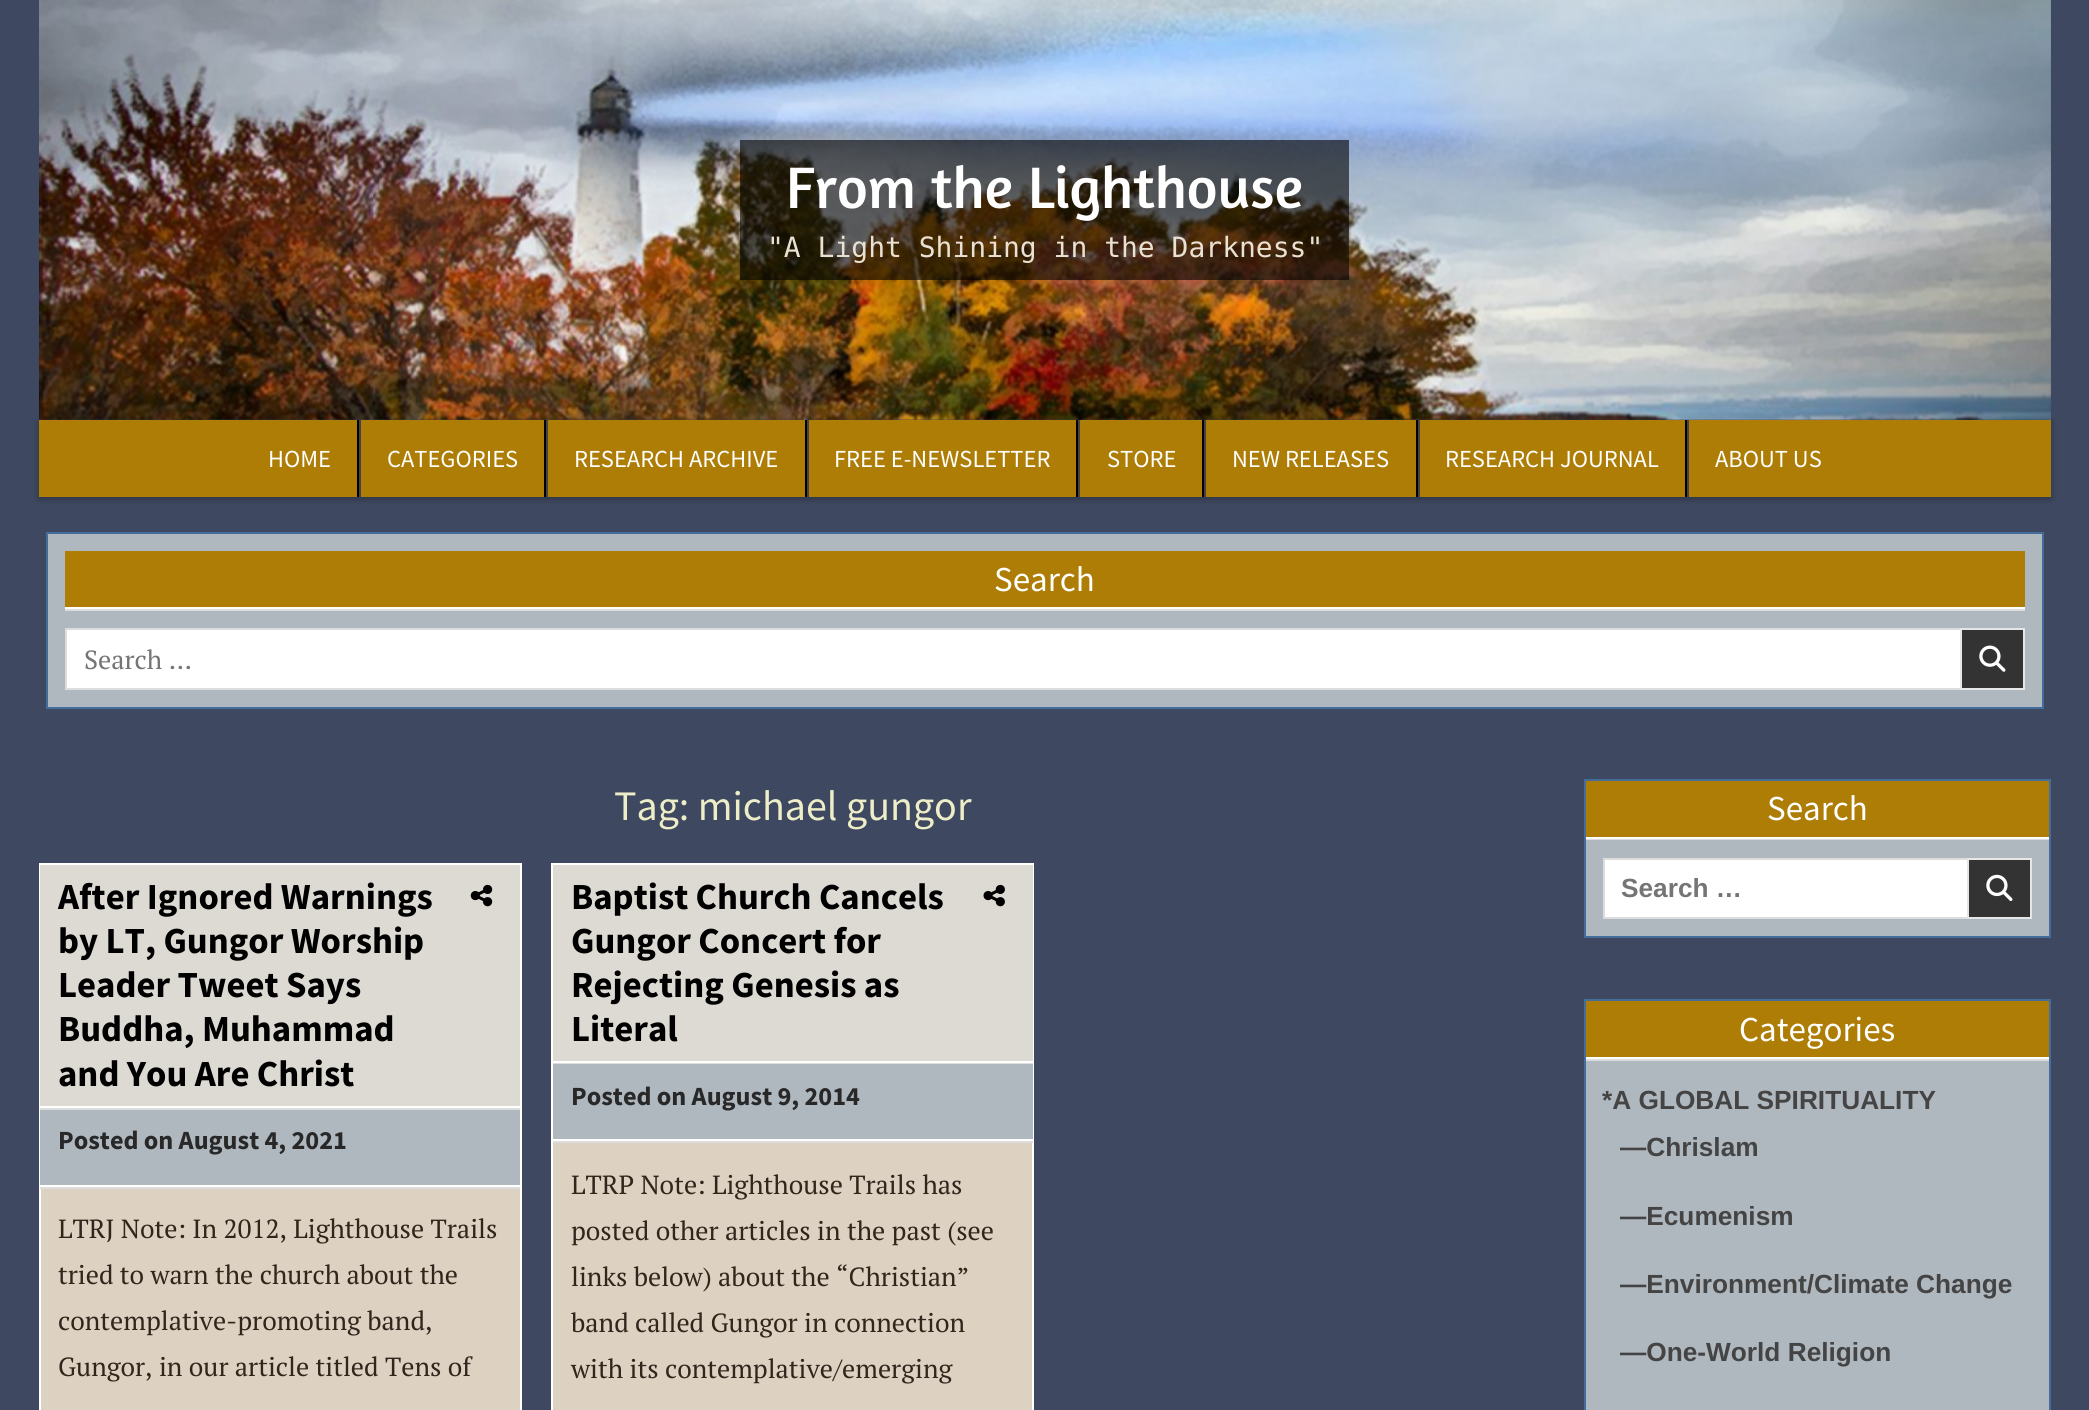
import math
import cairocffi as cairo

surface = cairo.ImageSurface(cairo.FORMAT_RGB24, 2089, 1410)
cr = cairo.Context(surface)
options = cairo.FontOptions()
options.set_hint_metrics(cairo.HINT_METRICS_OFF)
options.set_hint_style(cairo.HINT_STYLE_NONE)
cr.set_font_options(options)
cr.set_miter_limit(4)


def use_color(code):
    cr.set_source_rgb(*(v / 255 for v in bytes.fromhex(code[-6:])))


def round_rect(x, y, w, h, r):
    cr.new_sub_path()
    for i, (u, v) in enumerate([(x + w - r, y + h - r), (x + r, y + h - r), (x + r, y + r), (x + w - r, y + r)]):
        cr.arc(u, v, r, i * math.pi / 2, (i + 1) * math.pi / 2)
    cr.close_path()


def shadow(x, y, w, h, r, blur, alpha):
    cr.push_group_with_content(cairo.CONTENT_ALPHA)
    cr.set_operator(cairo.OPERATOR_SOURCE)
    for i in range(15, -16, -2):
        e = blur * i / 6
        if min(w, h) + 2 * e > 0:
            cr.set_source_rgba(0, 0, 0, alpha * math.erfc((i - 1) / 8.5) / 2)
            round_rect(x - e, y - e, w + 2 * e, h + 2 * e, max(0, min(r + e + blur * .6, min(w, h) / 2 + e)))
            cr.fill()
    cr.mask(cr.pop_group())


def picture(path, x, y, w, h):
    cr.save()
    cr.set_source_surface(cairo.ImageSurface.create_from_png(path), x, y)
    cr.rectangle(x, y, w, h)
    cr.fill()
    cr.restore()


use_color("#3e4860")
cr.paint()
picture("img1.png", 39, 0, 2012, 420)
cr.set_source_rgba(0, 0, 0, 0.6)
cr.rectangle(740, 140, 609, 140)
cr.fill()
cr.select_font_face("Amaranth")
cr.set_font_size(59.5)
use_color("#ffffff")
cr.move_to(786, 208)
cr.show_text("From the Lighthouse")
cr.select_font_face("DejaVu Sans Mono")
cr.set_font_size(28)
use_color("#eae1d3")
cr.move_to(767, 257)
cr.show_text("\"A Light Shining in the Darkness\"")
use_color("#000000")
shadow(39, 422, 2012, 77, 0, 3.5, 0.3)
use_color("#ad7d05")
cr.rectangle(39, 420, 2012, 77)
cr.fill()
use_color("#000000")
cr.rectangle(357, 420, 2, 77)
cr.fill()
cr.select_font_face("Source Sans Pro")
cr.set_font_size(24.5)
use_color("#ffffff")
cr.move_to(268, 467)
cr.show_text("HOME")
use_color("#000000")
cr.rectangle(544, 420, 2, 77)
cr.fill()
use_color("#444444")
cr.rectangle(359, 420, 2, 77)
cr.fill()
use_color("#ffffff")
cr.move_to(387, 467)
cr.show_text("CATEGORIES")
use_color("#000000")
cr.rectangle(805, 420, 2, 77)
cr.fill()
use_color("#444444")
cr.rectangle(546, 420, 2, 77)
cr.fill()
use_color("#ffffff")
cr.move_to(574, 467)
cr.show_text("RESEARCH ARCHIVE")
use_color("#000000")
cr.rectangle(1076, 420, 2, 77)
cr.fill()
use_color("#444444")
cr.rectangle(807, 420, 2, 77)
cr.fill()
use_color("#ffffff")
cr.move_to(834, 467)
cr.show_text("FREE E-NEWSLETTER")
use_color("#000000")
cr.rectangle(1202, 420, 2, 77)
cr.fill()
use_color("#444444")
cr.rectangle(1078, 420, 2, 77)
cr.fill()
use_color("#ffffff")
cr.move_to(1107, 467)
cr.show_text("STORE")
use_color("#000000")
cr.rectangle(1416, 420, 2, 77)
cr.fill()
use_color("#444444")
cr.rectangle(1204, 420, 2, 77)
cr.fill()
use_color("#ffffff")
cr.move_to(1232, 467)
cr.show_text("NEW RELEASES")
use_color("#000000")
cr.rectangle(1685, 420, 2, 77)
cr.fill()
use_color("#444444")
cr.rectangle(1418, 420, 2, 77)
cr.fill()
use_color("#ffffff")
cr.move_to(1445, 467)
cr.show_text("RESEARCH JOURNAL")
use_color("#444444")
cr.rectangle(1687, 420, 2, 77)
cr.fill()
use_color("#ffffff")
cr.move_to(1715, 467)
cr.show_text("ABOUT US")
use_color("#afb7bf")
cr.rectangle(47, 533, 1996, 175)
cr.fill_preserve()
use_color("#446d9b")
cr.stroke()
use_color("#ad7d05")
cr.rectangle(65, 551, 1960, 56)
cr.fill()
use_color("#dddddd")
cr.rectangle(65, 609, 1960, 2)
cr.fill()
use_color("#ffffff")
cr.rectangle(65, 607, 1960, 2)
cr.fill()
cr.set_font_size(35)
cr.move_to(994, 591)
cr.show_text("Search")
cr.rectangle(67, 630, 1893, 58)
cr.fill()
cr.rectangle(66, 629, 1958, 60)
use_color("#dddddd")
cr.stroke()
cr.select_font_face("PT Serif")
cr.set_font_size(26.25)
use_color("#757575")
cr.move_to(84, 669)
cr.show_text("Search …")
use_color("#333333")
cr.rectangle(1961, 629, 63, 60)
cr.fill_preserve()
use_color("#e6e6e6")
cr.stroke()
picture("img2.png", 1979, 645, 27, 27)
cr.select_font_face("Source Sans Pro")
cr.set_font_size(42)
use_color("#ededc7")
cr.move_to(614, 820)
cr.show_text("Tag: michael gungor")
use_color("#ddd2c1")
cr.rectangle(41, 1189, 479, 221)
cr.fill()
cr.rectangle(40, 864, 481, 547)
use_color("#ffffff")
cr.stroke()
use_color("#dddddd")
cr.rectangle(40, 1108, 480, 2)
cr.fill()
use_color("#dddad4")
cr.rectangle(40, 865, 480, 241)
cr.fill()
use_color("#ffffff")
cr.rectangle(40, 1106, 480, 2)
cr.fill()
cr.select_font_face("Source Sans Pro", cairo.FONT_SLANT_NORMAL, cairo.FONT_WEIGHT_BOLD)
cr.set_font_size(36.75)
use_color("#000000")
cr.move_to(58, 909)
cr.show_text("After Ignored Warnings")
cr.move_to(58, 953)
cr.show_text("by LT, Gungor Worship")
cr.move_to(58, 997)
cr.show_text("Leader Tweet Says")
cr.move_to(58, 1041)
cr.show_text("Buddha, Muhammad")
cr.move_to(58, 1086)
cr.show_text("and You Are Christ")
picture("img3.png", 470, 884, 23, 23)
use_color("#afb7bf")
cr.rectangle(40, 1110, 480, 75)
cr.fill()
use_color("#dddddd")
cr.rectangle(40, 1187, 480, 2)
cr.fill()
use_color("#ffffff")
cr.rectangle(40, 1185, 480, 2)
cr.fill()
cr.set_font_size(26.25)
use_color("#282828")
cr.move_to(58, 1149)
cr.show_text("Posted on August 4, 2021")
cr.select_font_face("PT Serif")
use_color("#31251c")
cr.move_to(58, 1238)
cr.show_text("LTRJ Note: In 2012, Lighthouse Trails")
cr.move_to(58, 1284)
cr.show_text("tried to warn the church about the")
cr.move_to(58, 1330)
cr.show_text("contemplative-promoting band,")
cr.move_to(58, 1376)
cr.show_text("Gungor, in our article titled Tens of")
use_color("#ddd2c1")
cr.rectangle(553, 1143, 479, 267)
cr.fill()
cr.rectangle(552, 864, 481, 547)
use_color("#ffffff")
cr.stroke()
use_color("#dddddd")
cr.rectangle(553, 1063, 480, 1)
cr.fill()
use_color("#dddad4")
cr.rectangle(553, 865, 480, 196)
cr.fill()
use_color("#ffffff")
cr.rectangle(553, 1061, 480, 2)
cr.fill()
cr.select_font_face("Source Sans Pro", cairo.FONT_SLANT_NORMAL, cairo.FONT_WEIGHT_BOLD)
cr.set_font_size(36.75)
use_color("#000000")
cr.move_to(571, 909)
cr.show_text("Baptist Church Cancels")
cr.move_to(571, 953)
cr.show_text("Gungor Concert for")
cr.move_to(571, 997)
cr.show_text("Rejecting Genesis as")
cr.move_to(571, 1041)
cr.show_text("Literal")
picture("img4.png", 983, 884, 22, 23)
use_color("#afb7bf")
cr.rectangle(553, 1064, 480, 75)
cr.fill()
use_color("#dddddd")
cr.rectangle(553, 1141, 480, 2)
cr.fill()
use_color("#ffffff")
cr.rectangle(553, 1139, 480, 2)
cr.fill()
cr.set_font_size(26.25)
use_color("#282828")
cr.move_to(571, 1105)
cr.show_text("Posted on August 9, 2014")
cr.select_font_face("PT Serif")
use_color("#31251c")
cr.move_to(571, 1194)
cr.show_text("LTRP Note: Lighthouse Trails has")
cr.move_to(571, 1240)
cr.show_text("posted other articles in the past (see")
cr.move_to(571, 1286)
cr.show_text("links below) about the “Christian”")
cr.move_to(571, 1332)
cr.show_text("band called Gungor in connection")
cr.move_to(571, 1378)
cr.show_text("with its contemplative/emerging")
use_color("#afb7bf")
cr.rectangle(1586, 840, 463, 96)
cr.fill()
cr.rectangle(1585, 780, 465, 157)
use_color("#446d9b")
cr.stroke()
use_color("#ad7d05")
cr.rectangle(1586, 781, 463, 56)
cr.fill()
use_color("#dddddd")
cr.rectangle(1586, 839, 463, 1)
cr.fill()
use_color("#ffffff")
cr.rectangle(1586, 837, 463, 2)
cr.fill()
cr.select_font_face("Source Sans Pro")
cr.set_font_size(35)
cr.move_to(1767, 820)
cr.show_text("Search")
cr.rectangle(1605, 860, 362, 57)
cr.fill()
cr.rectangle(1604, 859, 427, 59)
use_color("#dddddd")
cr.stroke()
cr.select_font_face("Liberation Sans", cairo.FONT_SLANT_NORMAL, cairo.FONT_WEIGHT_BOLD)
cr.set_font_size(26.25)
use_color("#757575")
cr.move_to(1621, 897)
cr.show_text("Search …")
use_color("#333333")
cr.rectangle(1968, 859, 63, 59)
cr.fill_preserve()
use_color("#e6e6e6")
cr.stroke()
picture("img5.png", 1986, 874, 27, 27)
use_color("#afb7bf")
cr.rectangle(1586, 1061, 463, 349)
cr.fill()
cr.rectangle(1585, 1000, 465, 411)
use_color("#446d9b")
cr.stroke()
use_color("#ad7d05")
cr.rectangle(1586, 1001, 463, 56)
cr.fill()
use_color("#dddddd")
cr.rectangle(1586, 1059, 463, 2)
cr.fill()
use_color("#ffffff")
cr.rectangle(1586, 1057, 463, 2)
cr.fill()
cr.select_font_face("Source Sans Pro")
cr.set_font_size(35)
cr.move_to(1739, 1041)
cr.show_text("Categories")
cr.select_font_face("Liberation Sans", cairo.FONT_SLANT_NORMAL, cairo.FONT_WEIGHT_BOLD)
cr.set_font_size(26.25)
use_color("#444444")
cr.move_to(1602, 1109)
cr.show_text("*A GLOBAL SPIRITUALITY")
cr.move_to(1620, 1156)
cr.show_text("—Chrislam")
cr.move_to(1620, 1225)
cr.show_text("—Ecumenism")
cr.move_to(1620, 1293)
cr.show_text("—Environment/Climate Change")
cr.move_to(1620, 1361)
cr.show_text("—One-World Religion")
surface.write_to_png("result.png")
